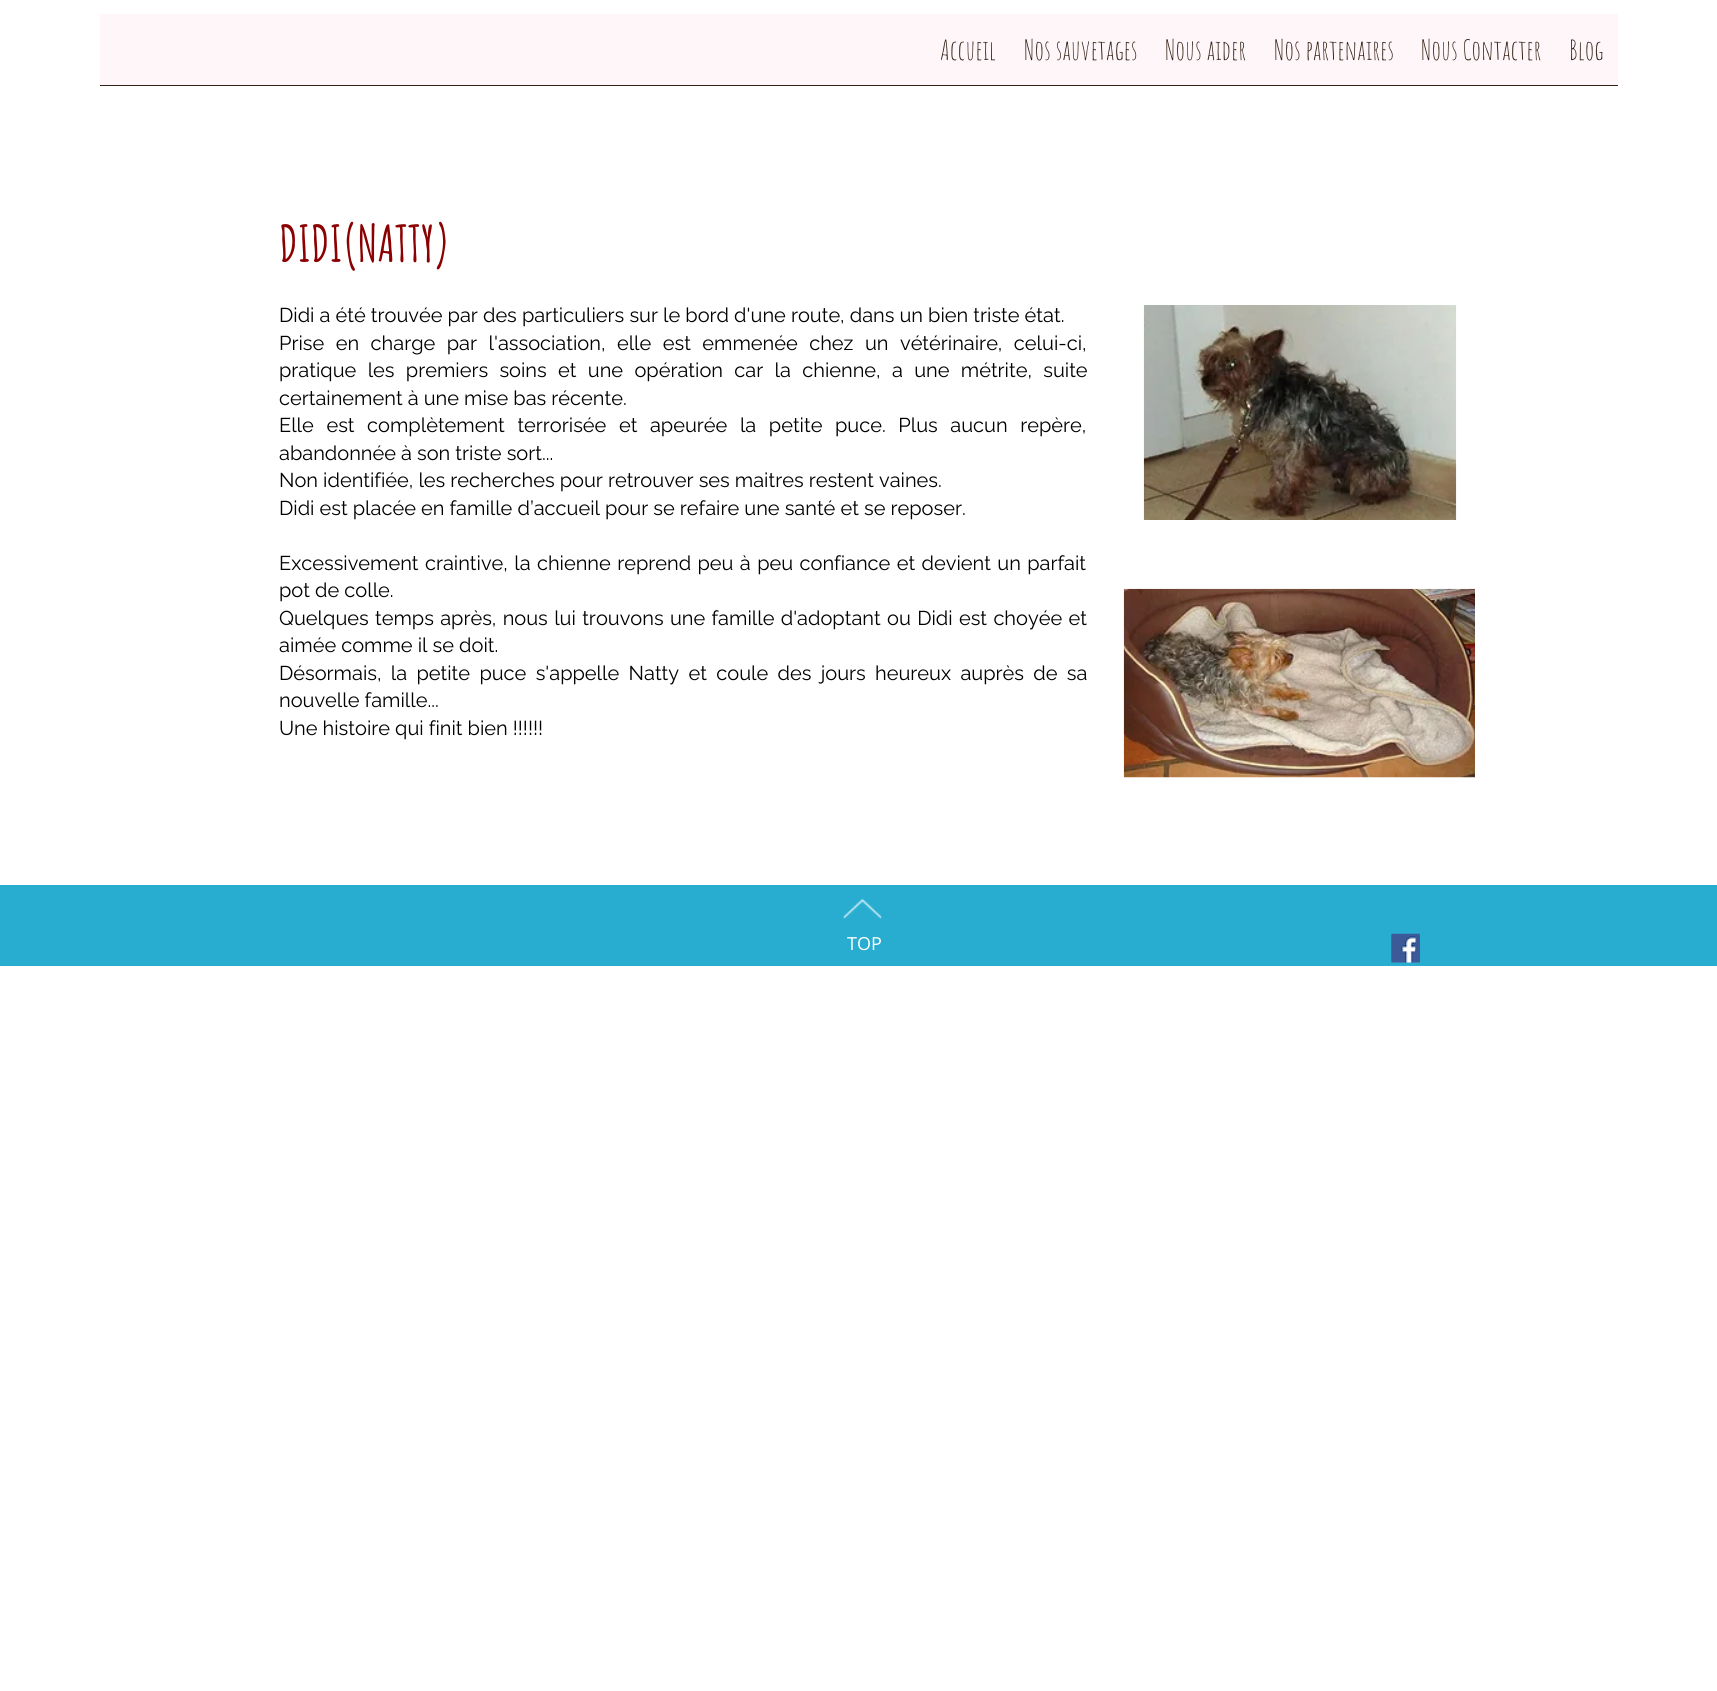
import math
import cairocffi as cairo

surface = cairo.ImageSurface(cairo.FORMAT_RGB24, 1717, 1691)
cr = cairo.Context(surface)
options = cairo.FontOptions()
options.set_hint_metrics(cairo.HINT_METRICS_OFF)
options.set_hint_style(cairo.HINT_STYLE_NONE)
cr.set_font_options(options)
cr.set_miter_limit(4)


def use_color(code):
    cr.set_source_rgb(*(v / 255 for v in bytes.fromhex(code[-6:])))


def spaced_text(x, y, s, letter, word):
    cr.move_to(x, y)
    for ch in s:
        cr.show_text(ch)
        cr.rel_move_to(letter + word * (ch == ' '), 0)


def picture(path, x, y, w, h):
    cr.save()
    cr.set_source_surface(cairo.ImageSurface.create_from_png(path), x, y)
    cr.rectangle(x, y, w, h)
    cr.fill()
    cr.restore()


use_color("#ffffff")
cr.paint()
use_color("#fff6f9")
cr.rectangle(100, 14, 1518, 71)
cr.fill()
use_color("#342216")
cr.rectangle(100, 85, 1518, 1)
cr.fill()
cr.select_font_face("Amatic SC")
cr.set_font_size(27.5)
cr.move_to(940, 60)
cr.show_text("Accueil")
cr.move_to(1024, 60)
cr.show_text("Nos sauvetages")
cr.move_to(1165, 60)
cr.show_text("Nous aider")
cr.move_to(1274, 60)
cr.show_text("Nos partenaires")
cr.move_to(1421, 60)
cr.show_text("Nous Contacter")
cr.move_to(1569, 60)
cr.show_text("Blog")
cr.select_font_face("Amatic SC", cairo.FONT_SLANT_NORMAL, cairo.FONT_WEIGHT_BOLD)
cr.set_font_size(50)
use_color("#8b0000")
cr.move_to(279, 262)
cr.show_text("DIDI(NATTY)")
cr.select_font_face("Raleway")
cr.set_font_size(20)
use_color("#000000")
cr.move_to(279, 322)
cr.show_text("Didi a été trouvée par des particuliers sur le bord d'une route, dans un bien triste état.")
spaced_text(279, 350, "Prise en charge par l'association, elle est emmenée chez un vétérinaire, celui-ci,", 0, 6.4)
spaced_text(279, 377, "pratique les premiers soins et une opération car la chienne, a une métrite, suite", 0, 6.25)
cr.move_to(279, 405)
cr.show_text("certainement à une mise bas récente.")
spaced_text(279, 432, "Elle est complètement terrorisée et apeurée la petite puce. Plus aucun repère,", 0, 7.5)
cr.move_to(279, 460)
cr.show_text("abandonnée à son triste sort...")
cr.move_to(279, 487)
cr.show_text("Non identifiée, les recherches pour retrouver ses maitres restent vaines.")
cr.move_to(279, 515)
cr.show_text("Didi est placée en famille d’accueil pour se refaire une santé et se reposer.")
spaced_text(279, 570, "Excessivement craintive, la chienne reprend peu à peu confiance et devient un parfait", 0, 1.3)
cr.move_to(279, 597)
cr.show_text("pot de colle.")
spaced_text(279, 625, "Quelques temps après, nous lui trouvons une famille d'adoptant ou Didi est choyée et", 0, 1.25)
cr.move_to(279, 652)
cr.show_text("aimée comme il se doit.")
spaced_text(279, 680, "Désormais, la petite puce s'appelle Natty et coule des jours heureux auprès de sa", 0, 4.25)
cr.move_to(279, 707)
cr.show_text("nouvelle famille...")
cr.move_to(279, 735)
cr.show_text("Une histoire qui finit bien !!!!!!")
picture("img1.png", 1143, 305, 314, 215)
picture("img2.png", 1123, 588, 352, 190)
use_color("#28add1")
cr.rectangle(0, 885, 1717, 81)
cr.fill()
picture("img3.png", 843, 898, 39, 21)
cr.select_font_face("Open Sans")
cr.set_font_size(18)
use_color("#ffffff")
cr.move_to(847, 950)
cr.show_text("TOP")
picture("img4.png", 1391, 933, 29, 30)
surface.write_to_png("result.png")
